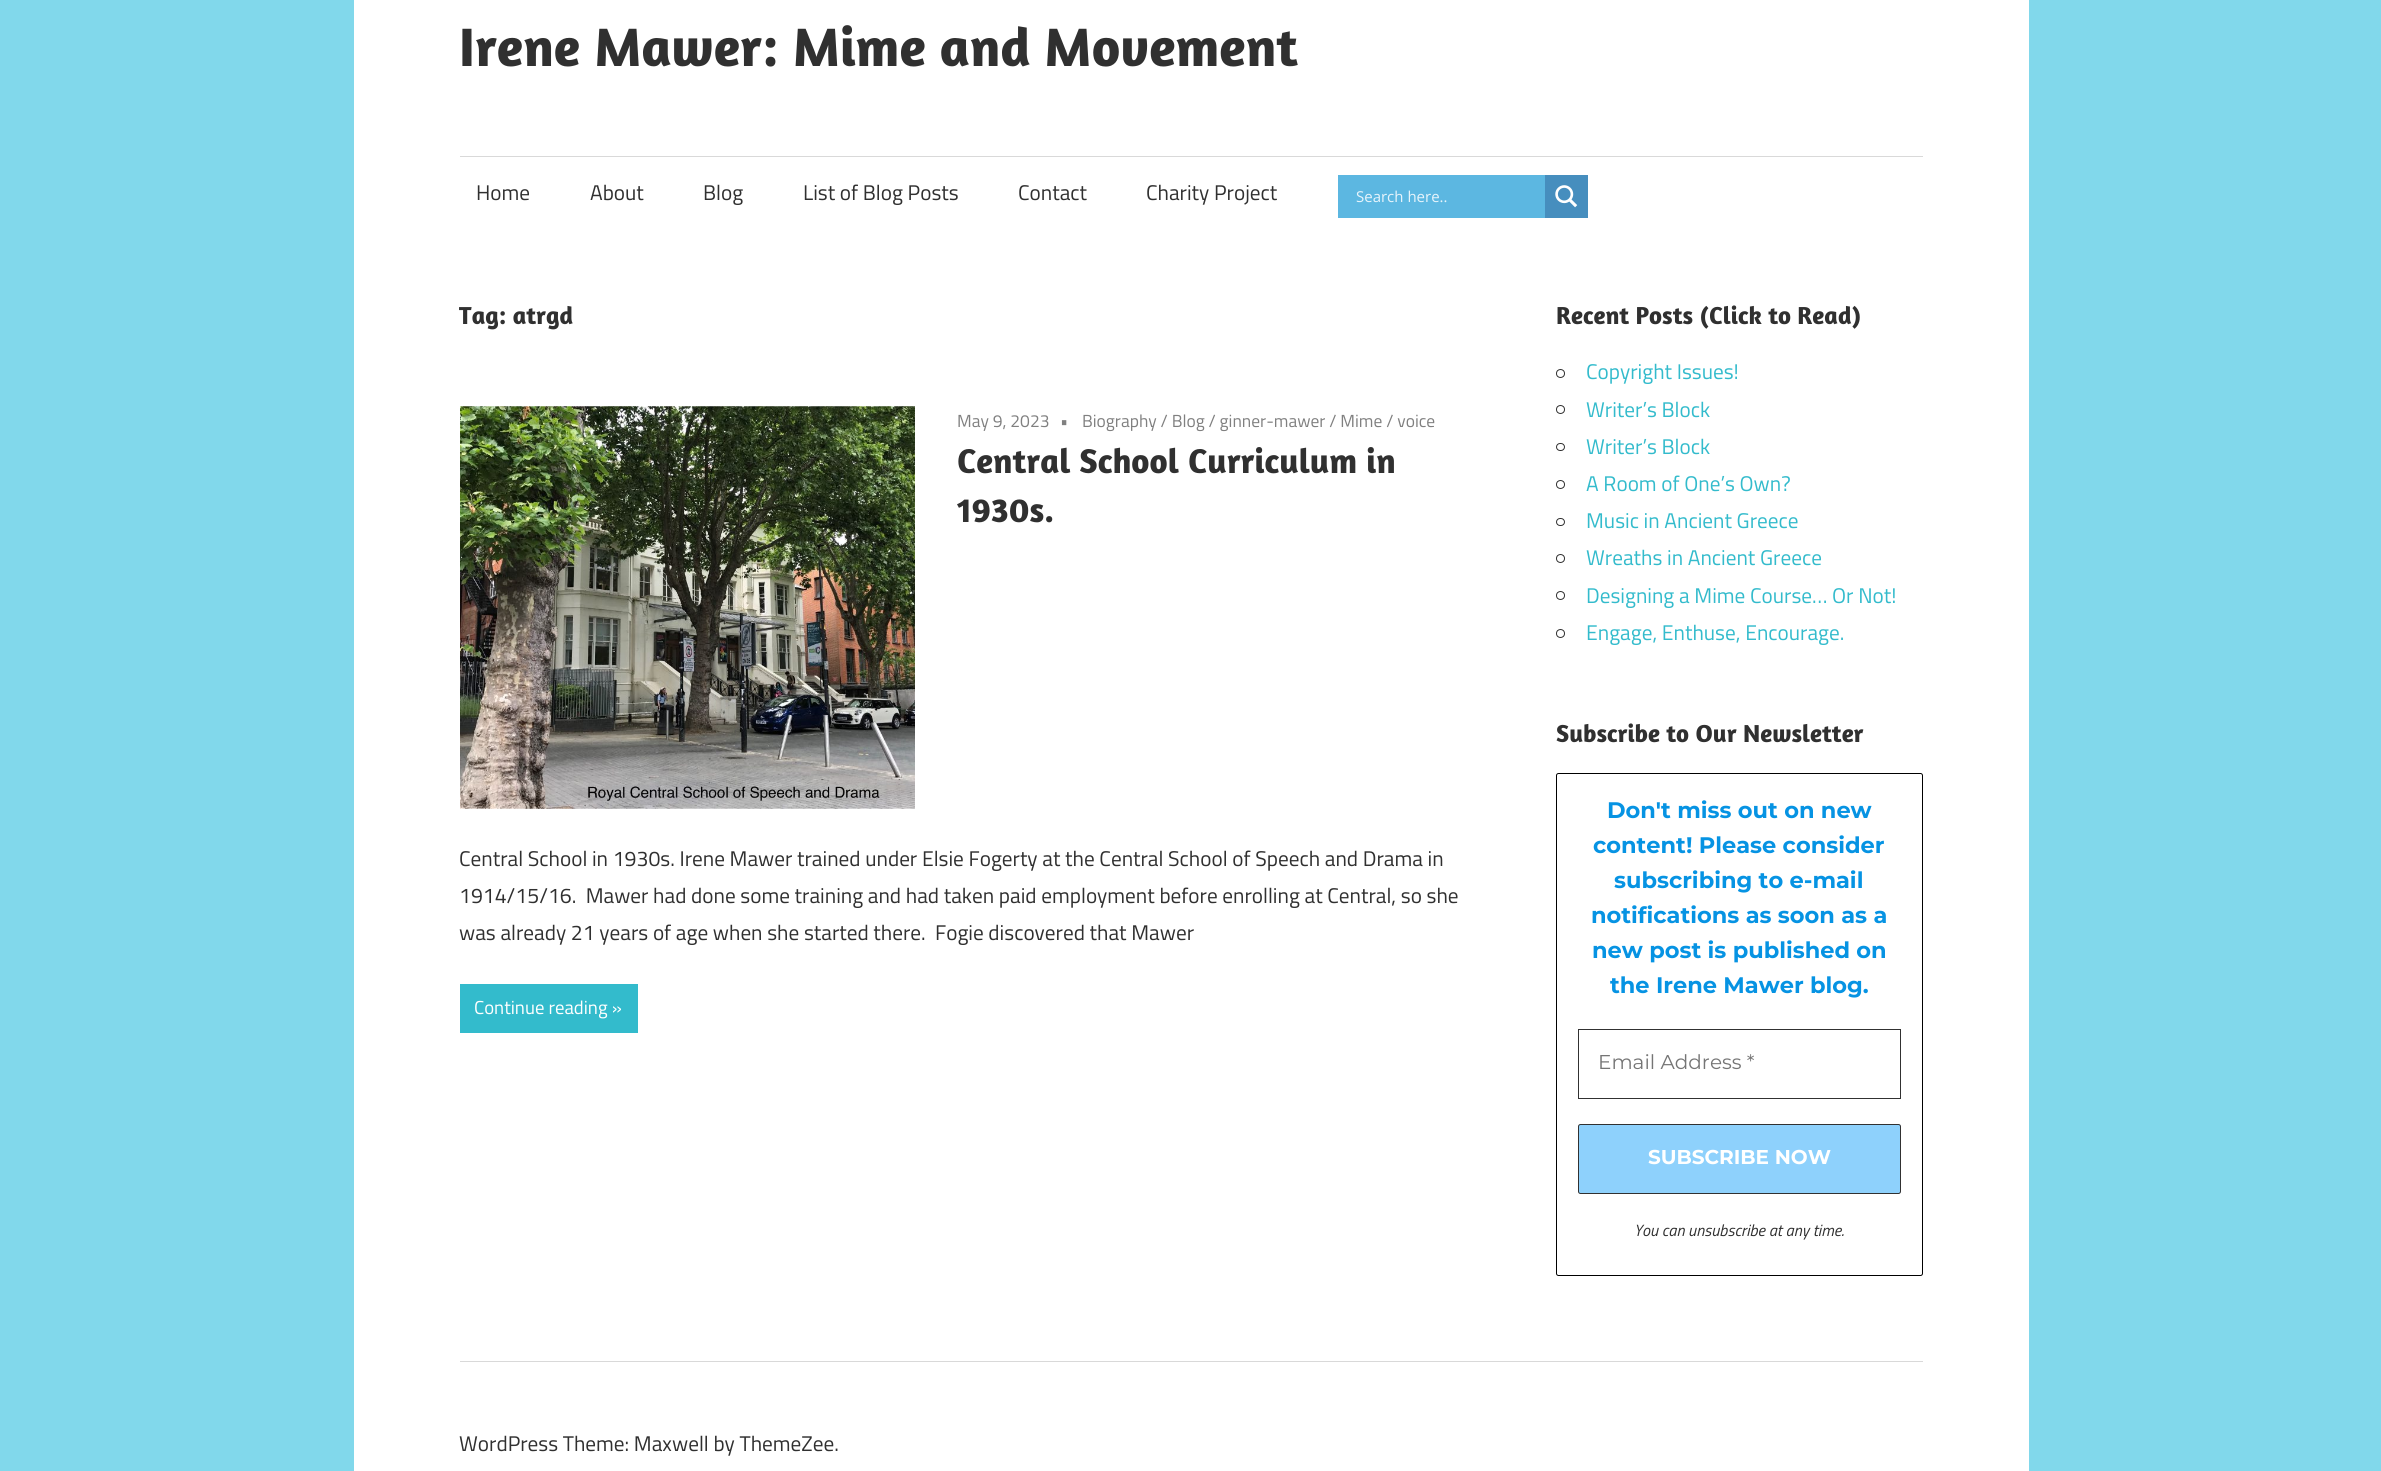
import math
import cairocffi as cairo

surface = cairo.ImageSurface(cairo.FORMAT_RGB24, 2381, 1471)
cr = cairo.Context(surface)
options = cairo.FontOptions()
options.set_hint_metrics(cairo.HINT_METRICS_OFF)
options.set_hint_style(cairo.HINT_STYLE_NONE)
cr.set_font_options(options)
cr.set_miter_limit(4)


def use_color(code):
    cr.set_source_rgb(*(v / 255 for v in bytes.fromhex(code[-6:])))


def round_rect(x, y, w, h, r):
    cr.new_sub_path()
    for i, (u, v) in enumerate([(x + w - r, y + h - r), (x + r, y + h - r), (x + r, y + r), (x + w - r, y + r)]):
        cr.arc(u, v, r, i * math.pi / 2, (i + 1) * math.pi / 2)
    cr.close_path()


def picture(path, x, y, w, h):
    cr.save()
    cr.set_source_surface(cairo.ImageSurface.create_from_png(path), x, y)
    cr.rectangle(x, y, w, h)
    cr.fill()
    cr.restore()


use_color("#81d8eb")
cr.paint()
use_color("#ffffff")
cr.rectangle(354, 0, 1675, 1471)
cr.fill()
cr.select_font_face("Amaranth", cairo.FONT_SLANT_NORMAL, cairo.FONT_WEIGHT_BOLD)
cr.set_font_size(55)
use_color("#303030")
cr.move_to(459, 66)
cr.show_text("Irene Mawer: Mime and Movement")
use_color("#d9d9d9")
cr.rectangle(460, 156, 1463, 1)
cr.fill()
cr.select_font_face("Titillium Web")
cr.set_font_size(21.25)
use_color("#303030")
cr.move_to(476, 200)
cr.show_text("Home")
cr.move_to(590, 200)
cr.show_text("About")
cr.move_to(703, 200)
cr.show_text("Blog")
cr.move_to(803, 200)
cr.show_text("List of Blog Posts")
cr.move_to(1018, 200)
cr.show_text("Contact")
cr.move_to(1146, 200)
cr.show_text("Charity Project")
use_color("#5cb7e1")
cr.rectangle(1338, 175, 207, 43)
cr.fill()
cr.select_font_face("Open Sans")
cr.set_font_size(15)
use_color("#e7f4fb")
cr.move_to(1356, 202)
cr.show_text("Search here..")
use_color("#468ebe")
cr.rectangle(1545, 175, 43, 43)
cr.fill()
picture("img1.png", 1555, 185, 23, 23)
cr.select_font_face("Amaranth", cairo.FONT_SLANT_NORMAL, cairo.FONT_WEIGHT_BOLD)
cr.set_font_size(25)
use_color("#303030")
cr.move_to(459, 324)
cr.show_text("Tag: atrgd")
picture("img2.png", 460, 406, 455, 403)
cr.select_font_face("Titillium Web")
cr.set_font_size(17.5)
use_color("#808080")
cr.move_to(957, 427)
cr.show_text("May 9, 2023")
cr.move_to(1060, 427)
cr.show_text("•")
cr.move_to(1082, 427)
cr.show_text("Biography / Blog / ginner-mawer / Mime / voice")
cr.select_font_face("Amaranth", cairo.FONT_SLANT_NORMAL, cairo.FONT_WEIGHT_BOLD)
cr.set_font_size(35)
use_color("#303030")
cr.move_to(957, 473)
cr.show_text("Central School Curriculum in")
cr.move_to(957, 522)
cr.show_text("1930s.")
cr.select_font_face("Titillium Web")
cr.set_font_size(21.25)
cr.move_to(459, 866)
cr.show_text("Central School in 1930s. Irene Mawer trained under Elsie Fogerty at the Central School of Speech and Drama in")
cr.move_to(459, 903)
cr.show_text("1914/15/16.  Mawer had done some training and had taken paid employment before enrolling at Central, so she")
cr.move_to(459, 940)
cr.show_text("was already 21 years of age when she started there.  Fogie discovered that Mawer")
use_color("#33bbcc")
cr.rectangle(460, 984, 178, 49)
cr.fill()
cr.set_font_size(18.75)
use_color("#ffffff")
cr.move_to(474, 1014)
cr.show_text("Continue reading »")
cr.select_font_face("Amaranth", cairo.FONT_SLANT_NORMAL, cairo.FONT_WEIGHT_BOLD)
cr.set_font_size(25)
use_color("#303030")
cr.move_to(1556, 324)
cr.show_text("Recent Posts (Click to Read)")
cr.new_path()
cr.arc(1560.5, 373.5, 4, 0, 2 * math.pi)
cr.set_line_width(1)
cr.stroke()
cr.select_font_face("Titillium Web")
cr.set_font_size(21.25)
use_color("#33bbcc")
cr.move_to(1586, 379)
cr.show_text("Copyright Issues!")
cr.new_path()
cr.arc(1560.5, 409.5, 4, 0, 2 * math.pi)
use_color("#303030")
cr.stroke()
use_color("#33bbcc")
cr.move_to(1586, 417)
cr.show_text("Writer’s Block")
round_rect(1556.5, 443.5, 8, 7, 3.5)
use_color("#303030")
cr.stroke()
use_color("#33bbcc")
cr.move_to(1586, 454)
cr.show_text("Writer’s Block")
cr.new_path()
cr.arc(1560.5, 484.5, 4, 0, 2 * math.pi)
use_color("#303030")
cr.stroke()
use_color("#33bbcc")
cr.move_to(1586, 491)
cr.show_text("A Room of One’s Own?")
round_rect(1556.5, 518.5, 8, 7, 3.5)
use_color("#303030")
cr.stroke()
use_color("#33bbcc")
cr.move_to(1586, 528)
cr.show_text("Music in Ancient Greece")
cr.new_path()
cr.arc(1560.5, 558.5, 4, 0, 2 * math.pi)
use_color("#303030")
cr.stroke()
use_color("#33bbcc")
cr.move_to(1586, 565)
cr.show_text("Wreaths in Ancient Greece")
cr.new_path()
cr.arc(1560.5, 595.5, 4, 0, 2 * math.pi)
use_color("#303030")
cr.stroke()
use_color("#33bbcc")
cr.move_to(1586, 603)
cr.show_text("Designing a Mime Course… Or Not!")
cr.new_path()
cr.arc(1560.5, 633.5, 4, 0, 2 * math.pi)
use_color("#303030")
cr.stroke()
use_color("#33bbcc")
cr.move_to(1586, 640)
cr.show_text("Engage, Enthuse, Encourage.")
cr.select_font_face("Amaranth", cairo.FONT_SLANT_NORMAL, cairo.FONT_WEIGHT_BOLD)
cr.set_font_size(25)
use_color("#303030")
cr.move_to(1556, 742)
cr.show_text("Subscribe to Our Newsletter")
round_rect(1556.5, 773.5, 366, 502, 2)
use_color("#000000")
cr.stroke()
cr.select_font_face("Montserrat", cairo.FONT_SLANT_NORMAL, cairo.FONT_WEIGHT_BOLD)
cr.set_font_size(22.5)
use_color("#0693e3")
cr.move_to(1607, 818)
cr.show_text("Don't miss out on new")
cr.move_to(1593, 853)
cr.show_text("content! Please consider")
cr.move_to(1614, 888)
cr.show_text("subscribing to e-mail")
cr.move_to(1591, 923)
cr.show_text("notifications as soon as a")
cr.move_to(1592, 958)
cr.show_text("new post is published on")
cr.move_to(1610, 993)
cr.show_text("the Irene Mawer blog.")
cr.rectangle(1578.5, 1029.5, 322, 69)
use_color("#313131")
cr.stroke()
cr.select_font_face("Montserrat")
cr.set_font_size(20)
use_color("#757575")
cr.move_to(1598, 1069)
cr.show_text("Email Address *")
use_color("#8ed1fc")
round_rect(1578.5, 1124.5, 322, 69, 2)
cr.fill_preserve()
use_color("#313131")
cr.stroke()
cr.select_font_face("Montserrat", cairo.FONT_SLANT_NORMAL, cairo.FONT_WEIGHT_BOLD)
use_color("#ffffff")
cr.move_to(1648, 1164)
cr.show_text("SUBSCRIBE NOW")
cr.select_font_face("Titillium Web", cairo.FONT_SLANT_ITALIC)
cr.set_font_size(16.25)
use_color("#303030")
cr.move_to(1634, 1236)
cr.show_text("You can unsubscribe at any time.")
use_color("#d9d9d9")
cr.rectangle(460, 1361, 1463, 1)
cr.fill()
cr.select_font_face("Titillium Web")
cr.set_font_size(21.25)
use_color("#303030")
cr.move_to(459, 1451)
cr.show_text("WordPress Theme: Maxwell by ThemeZee.")
surface.write_to_png("result.png")
